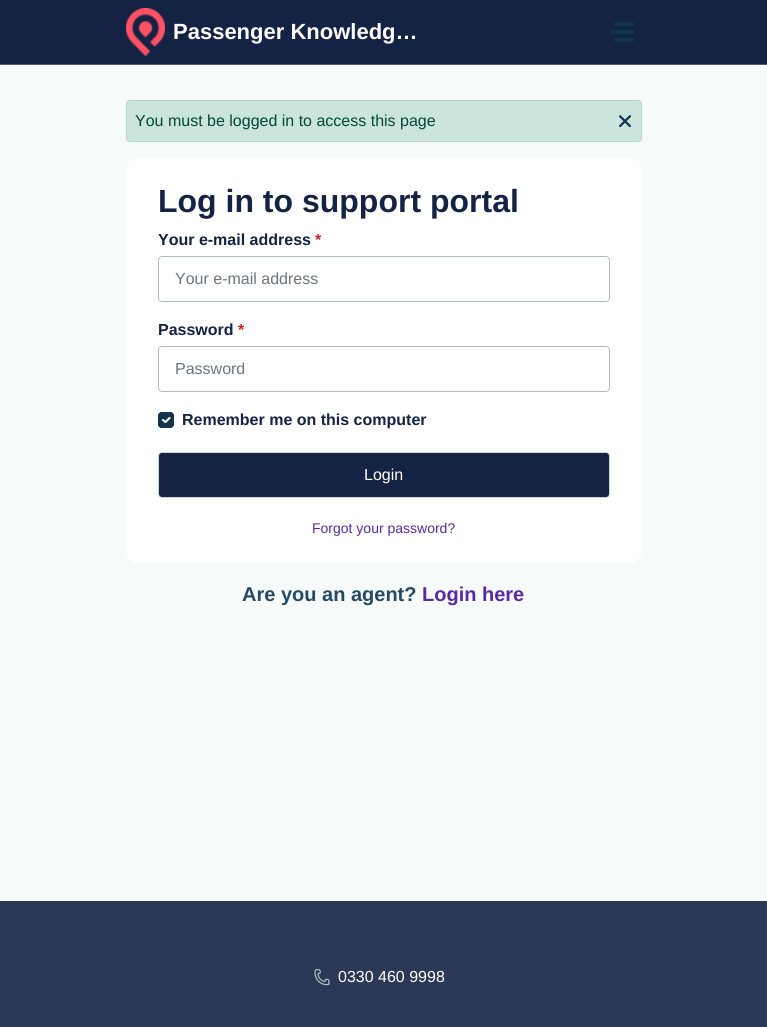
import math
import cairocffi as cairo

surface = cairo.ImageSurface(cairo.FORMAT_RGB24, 767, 1027)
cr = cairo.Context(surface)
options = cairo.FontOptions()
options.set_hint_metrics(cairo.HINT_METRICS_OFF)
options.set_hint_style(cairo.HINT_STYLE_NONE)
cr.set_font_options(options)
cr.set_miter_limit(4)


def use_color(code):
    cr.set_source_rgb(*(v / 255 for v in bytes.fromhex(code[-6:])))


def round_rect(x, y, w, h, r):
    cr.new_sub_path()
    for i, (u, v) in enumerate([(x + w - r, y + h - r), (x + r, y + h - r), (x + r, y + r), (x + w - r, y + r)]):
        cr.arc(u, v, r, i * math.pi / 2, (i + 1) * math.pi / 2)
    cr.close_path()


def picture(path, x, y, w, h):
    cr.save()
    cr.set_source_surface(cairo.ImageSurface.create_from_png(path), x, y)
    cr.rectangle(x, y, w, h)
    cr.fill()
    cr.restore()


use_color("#f6faf9")
cr.paint()
use_color("#142244")
cr.rectangle(0, 0, 767, 64)
cr.fill()
use_color("#4f5973")
cr.rectangle(0, 64, 767, 1)
cr.fill()
picture("img1.png", 126, 8, 39, 48)
cr.select_font_face("Liberation Sans", cairo.FONT_SLANT_NORMAL, cairo.FONT_WEIGHT_BOLD)
cr.set_font_size(22)
use_color("#ffffff")
cr.move_to(173, 39)
cr.show_text("Passenger Knowledg…")
use_color("#12344d")
round_rect(614, 22, 20, 4, 2)
cr.fill()
round_rect(610, 30, 24, 4, 2)
cr.fill()
round_rect(614, 38, 20, 4, 2)
cr.fill()
use_color("#cce4de")
round_rect(126.5, 100.5, 515, 41, 3.5)
cr.fill_preserve()
use_color("#b3d7ce")
cr.set_line_width(1)
cr.stroke()
cr.select_font_face("Liberation Sans")
cr.set_font_size(16)
use_color("#004937")
cr.move_to(135, 126)
cr.show_text("You must be logged in to access this page")
picture("img2.png", 619, 115, 12, 13)
use_color("#ffffff")
round_rect(126, 158, 516, 405, 12)
cr.fill()
cr.select_font_face("Liberation Sans", cairo.FONT_SLANT_NORMAL, cairo.FONT_WEIGHT_BOLD)
cr.set_font_size(32)
use_color("#142244")
cr.move_to(158, 212)
cr.show_text("Log in to support portal")
cr.set_font_size(16)
cr.move_to(158, 245)
cr.show_text("Your e-mail address")
use_color("#c82124")
cr.move_to(315, 245)
cr.show_text("*")
round_rect(158.5, 256.5, 451, 45, 3.5)
use_color("#b1bdc8")
cr.stroke()
cr.select_font_face("Liberation Sans")
use_color("#6c757d")
cr.move_to(175, 284)
cr.show_text("Your e-mail address")
cr.select_font_face("Liberation Sans", cairo.FONT_SLANT_NORMAL, cairo.FONT_WEIGHT_BOLD)
use_color("#142244")
cr.move_to(158, 335)
cr.show_text("Password")
use_color("#c82124")
cr.move_to(238, 335)
cr.show_text("*")
round_rect(158.5, 346.5, 451, 45, 3.5)
use_color("#b1bdc8")
cr.stroke()
cr.select_font_face("Liberation Sans")
use_color("#6c757d")
cr.move_to(175, 374)
cr.show_text("Password")
use_color("#12344d")
round_rect(158, 412, 16, 16, 4)
cr.fill()
cr.new_path()
cr.move_to(163, 420)
cr.line_to(165.5, 422)
cr.line_to(169.5, 418)
use_color("#ffffff")
cr.set_line_width(2.1)
cr.set_line_cap(cairo.LINE_CAP_ROUND)
cr.set_line_join(cairo.LINE_JOIN_ROUND)
cr.stroke()
round_rect(158.5, 412.5, 15, 15, 3.5)
use_color("#12344d")
cr.set_line_width(1)
cr.set_line_cap(cairo.LINE_CAP_BUTT)
cr.set_line_join(cairo.LINE_JOIN_MITER)
cr.stroke()
cr.select_font_face("Liberation Sans", cairo.FONT_SLANT_NORMAL, cairo.FONT_WEIGHT_BOLD)
use_color("#142244")
cr.move_to(182, 425)
cr.show_text("Remember me on this computer")
round_rect(158.5, 452.5, 451, 45, 3.5)
cr.fill_preserve()
use_color("#cfd7df")
cr.stroke()
cr.select_font_face("Liberation Sans")
use_color("#ffffff")
cr.move_to(364, 480)
cr.show_text("Login")
cr.set_font_size(14)
use_color("#5929a5")
cr.move_to(312, 533)
cr.show_text("Forgot your password?")
cr.select_font_face("Liberation Sans", cairo.FONT_SLANT_NORMAL, cairo.FONT_WEIGHT_BOLD)
cr.set_font_size(20)
use_color("#264966")
cr.move_to(242, 601)
cr.show_text("Are you an agent?")
use_color("#5929a5")
cr.move_to(422, 601)
cr.show_text("Login here")
use_color("#2b3856")
cr.rectangle(0, 901, 767, 126)
cr.fill()
picture("img3.png", 314, 969, 16, 17)
cr.select_font_face("Liberation Sans")
cr.set_font_size(16)
use_color("#ffffff")
cr.move_to(338, 982)
cr.show_text("0330 460 9998")
surface.write_to_png("result.png")
